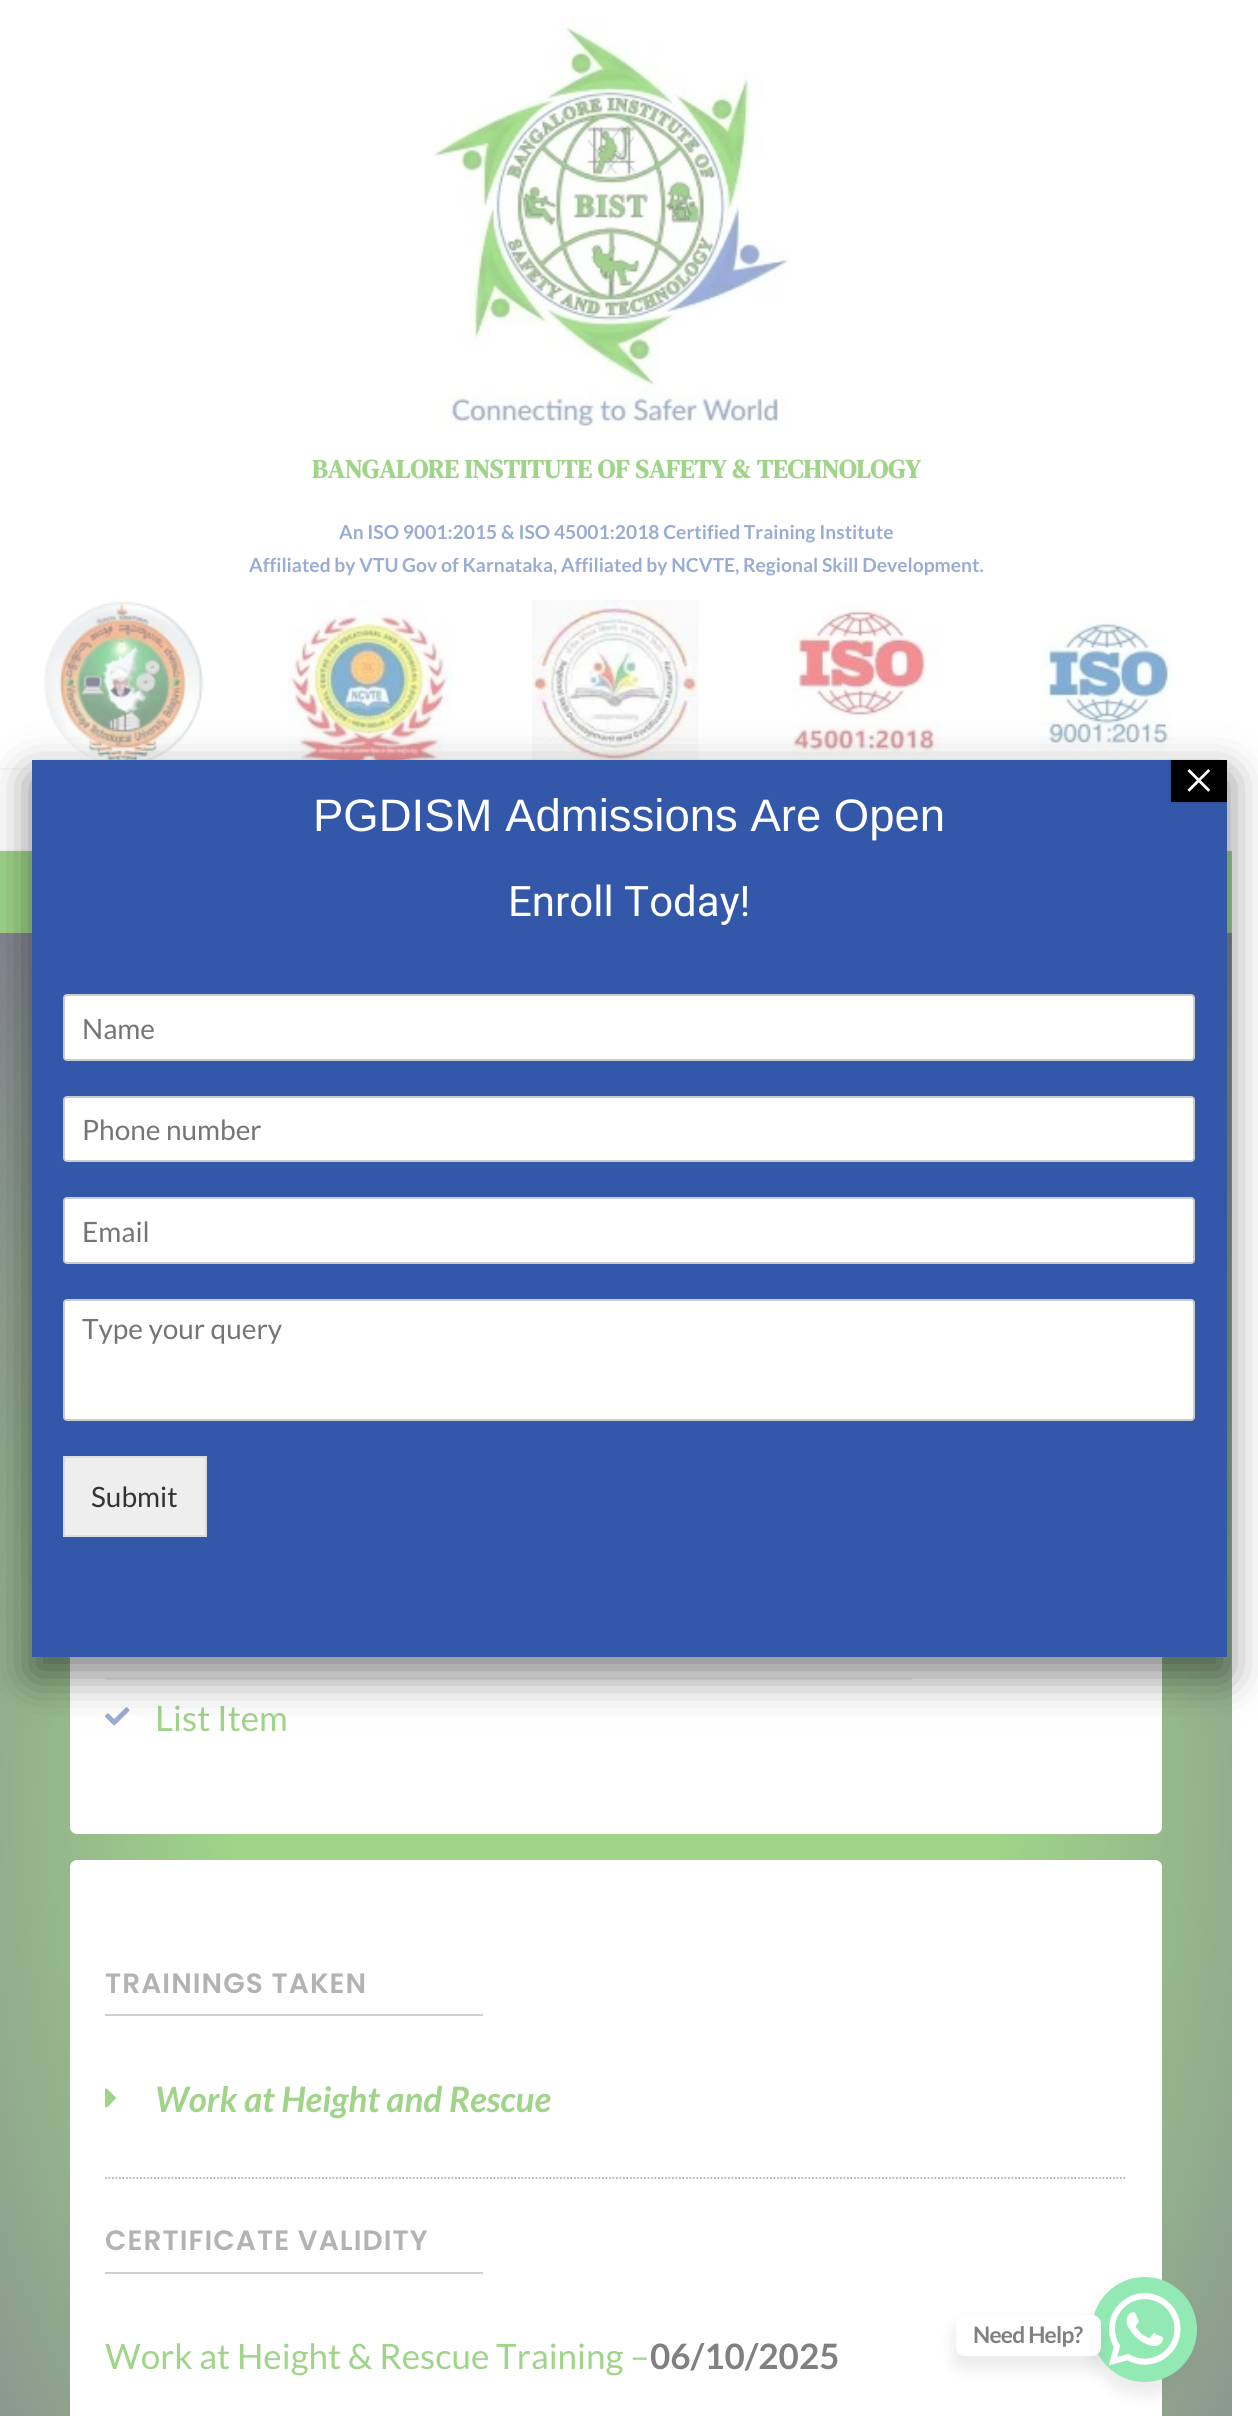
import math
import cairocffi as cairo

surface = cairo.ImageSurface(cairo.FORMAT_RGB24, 1258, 2416)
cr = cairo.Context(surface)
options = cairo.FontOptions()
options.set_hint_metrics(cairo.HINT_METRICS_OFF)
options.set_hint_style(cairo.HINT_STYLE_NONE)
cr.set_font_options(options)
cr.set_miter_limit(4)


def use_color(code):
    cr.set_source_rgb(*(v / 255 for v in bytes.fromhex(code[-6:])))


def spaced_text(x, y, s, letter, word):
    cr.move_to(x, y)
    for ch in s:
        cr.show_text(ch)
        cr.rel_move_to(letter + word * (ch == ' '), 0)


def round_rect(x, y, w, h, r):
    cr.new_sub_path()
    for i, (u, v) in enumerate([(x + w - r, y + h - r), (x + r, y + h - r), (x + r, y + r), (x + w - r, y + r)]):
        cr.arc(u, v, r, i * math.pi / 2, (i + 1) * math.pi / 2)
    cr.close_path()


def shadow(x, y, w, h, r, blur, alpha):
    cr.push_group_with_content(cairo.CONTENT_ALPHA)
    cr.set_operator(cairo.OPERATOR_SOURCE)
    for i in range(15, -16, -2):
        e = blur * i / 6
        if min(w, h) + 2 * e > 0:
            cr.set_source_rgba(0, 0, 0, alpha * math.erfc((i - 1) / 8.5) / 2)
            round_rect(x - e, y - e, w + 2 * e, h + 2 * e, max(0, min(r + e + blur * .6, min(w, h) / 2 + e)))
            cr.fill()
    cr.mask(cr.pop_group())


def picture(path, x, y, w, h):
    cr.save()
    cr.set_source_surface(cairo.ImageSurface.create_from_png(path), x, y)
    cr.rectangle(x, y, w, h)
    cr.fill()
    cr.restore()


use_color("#ffffff")
cr.paint()
picture("img1.png", 433, 17, 358, 414)
cr.select_font_face("DM Serif Text", cairo.FONT_SLANT_NORMAL, cairo.FONT_WEIGHT_BOLD)
cr.set_font_size(26.25)
use_color("#9fd489")
cr.move_to(312, 478)
cr.show_text("BANGALORE INSTITUTE OF SAFETY & TECHNOLOGY")
cr.select_font_face("Lato", cairo.FONT_SLANT_NORMAL, cairo.FONT_WEIGHT_BOLD)
cr.set_font_size(19.25)
use_color("#9aacd4")
cr.move_to(339, 539)
cr.show_text("An ISO 9001:2015 & ISO 45001:2018 Certified Training Institute")
cr.move_to(249, 572)
cr.show_text("Affiliated by VTU Gov of Karnataka, Affiliated by NCVTE, Regional Skill Development.")
picture("img2.png", 43, 601, 161, 159)
picture("img3.png", 287, 600, 166, 160)
picture("img4.png", 532, 600, 167, 160)
picture("img5.png", 792, 606, 149, 149)
picture("img6.png", 1039, 616, 133, 138)
use_color("#f9f9f9")
cr.rectangle(0, 768, 1232, 2)
cr.fill()
cr.rectangle(0, 849, 1232, 2)
cr.fill()
use_color("#9fd489")
cr.rectangle(0, 851, 1232, 82)
cr.fill()
gradient = cairo.RadialGradient(0, 0, 0, 0, 0, 1)
gradient.set_matrix(cairo.Matrix(1 / 871, 0, 0, 1 / 1234, -1 * 616 / 871, -1 * 1805 / 1234))
gradient.add_color_stop_rgba(0.44, 0.624, 0.831, 0.537, 1)
gradient.add_color_stop_rgba(1, 0.518, 0.522, 0.569, 1)
cr.set_source(gradient)
cr.rectangle(0, 933, 1232, 1483)
cr.fill()
use_color("#ffffff")
round_rect(70, 1020, 1092, 814, 7)
cr.fill()
use_color("#eeeeee")
cr.rectangle(105, 1678, 807, 2)
cr.fill()
picture("img7.png", 105, 1707, 25, 19)
cr.select_font_face("Lato")
cr.set_font_size(35)
use_color("#9fd489")
cr.move_to(155, 1731)
cr.show_text("List Item")
use_color("#ffffff")
round_rect(70, 1860, 1092, 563, 7)
cr.fill()
cr.select_font_face("Poppins SemiBold")
cr.set_font_size(28)
use_color("#b3b3b5")
spaced_text(105, 1993, "TRAININGS TAKEN", 1.05, 0)
use_color("#cfcfcf")
cr.rectangle(105, 2014, 378, 2)
cr.fill()
picture("img8.png", 105, 2088, 11, 20)
cr.select_font_face("Lato", cairo.FONT_SLANT_ITALIC, cairo.FONT_WEIGHT_BOLD)
cr.set_font_size(35)
use_color("#9fd489")
cr.move_to(155, 2112)
cr.show_text("Work at Height and Rescue")
cr.new_path()
cr.move_to(105, 2178)
cr.line_to(1127, 2178)
use_color("#b2b2b2")
cr.set_line_width(1.8)
cr.set_dash([1.75, 1.75])
cr.stroke()
cr.select_font_face("Poppins SemiBold")
cr.set_font_size(28)
use_color("#b3b3b5")
spaced_text(105, 2250, "CERTIFICATE VALIDITY", 1.05, 0)
use_color("#cfcfcf")
cr.rectangle(105, 2272, 378, 2)
cr.fill()
cr.select_font_face("Lato")
cr.set_font_size(35)
use_color("#9fd489")
cr.move_to(105, 2369)
cr.show_text("Work at Height & Rescue Training –")
cr.select_font_face("Lato", cairo.FONT_SLANT_NORMAL, cairo.FONT_WEIGHT_BOLD)
use_color("#808080")
cr.move_to(650, 2369)
cr.show_text("06/10/2025")
use_color("#020202")
shadow(32, 777, 1195, 898, 0, 22, 0.5)
use_color("#3458a9")
cr.rectangle(32, 760, 1195, 897)
cr.fill()
use_color("#020202")
shadow(1169, 761, 56, 42, 0, 1, 0.1)
use_color("#000000")
cr.rectangle(1171, 760, 56, 42)
cr.fill()
cr.select_font_face("Liberation Serif")
cr.set_font_size(56)
use_color("#ffffff")
cr.move_to(1183, 799)
cr.show_text("×")
cr.select_font_face("Liberation Sans")
cr.set_font_size(45.5)
cr.move_to(313, 831)
cr.show_text("PGDISM Admissions Are Open")
cr.select_font_face("Roboto")
cr.set_font_size(42)
cr.move_to(508, 916)
cr.show_text("Enroll Today!")
round_rect(64, 995, 1130, 65, 3)
cr.fill_preserve()
use_color("#cccccc")
cr.set_line_width(2)
cr.set_dash([])
cr.stroke()
cr.select_font_face("Lato")
cr.set_font_size(28)
use_color("#757575")
cr.move_to(82, 1039)
cr.show_text("Name")
use_color("#ffffff")
round_rect(64, 1097, 1130, 64, 3)
cr.fill_preserve()
use_color("#cccccc")
cr.stroke()
use_color("#757575")
cr.move_to(82, 1140)
cr.show_text("Phone number")
use_color("#ffffff")
round_rect(64, 1198, 1130, 65, 3)
cr.fill_preserve()
use_color("#cccccc")
cr.stroke()
use_color("#757575")
cr.move_to(82, 1242)
cr.show_text("Email")
use_color("#ffffff")
round_rect(64, 1300, 1130, 120, 3)
cr.fill_preserve()
use_color("#cccccc")
cr.stroke()
use_color("#757575")
cr.move_to(82, 1339)
cr.show_text("Type your query")
use_color("#eeeeee")
cr.rectangle(64, 1457, 142, 79)
cr.fill_preserve()
use_color("#dddddd")
cr.stroke()
use_color("#333333")
cr.move_to(91, 1507)
cr.show_text("Submit")
use_color("#808080")
shadow(1089, 2284, 112, 112, 56, 7, 0.15)
use_color("#92e9b3")
cr.arc(1144.5, 2329.5, 52.5, 0, 2 * math.pi)
cr.fill()
picture("img9.png", 1108, 2293, 73, 73)
use_color("#808080")
shadow(952, 2322, 152, 48, 12, 7, 0.15)
use_color("#ffffff")
round_rect(956, 2315, 145, 41, 9)
cr.fill()
cr.select_font_face("Lato", cairo.FONT_SLANT_NORMAL, cairo.FONT_WEIGHT_BOLD)
cr.set_font_size(22.75)
use_color("#808080")
spaced_text(973, 2343, "Need Help?", -0.75, 0)
surface.write_to_png("result.png")
